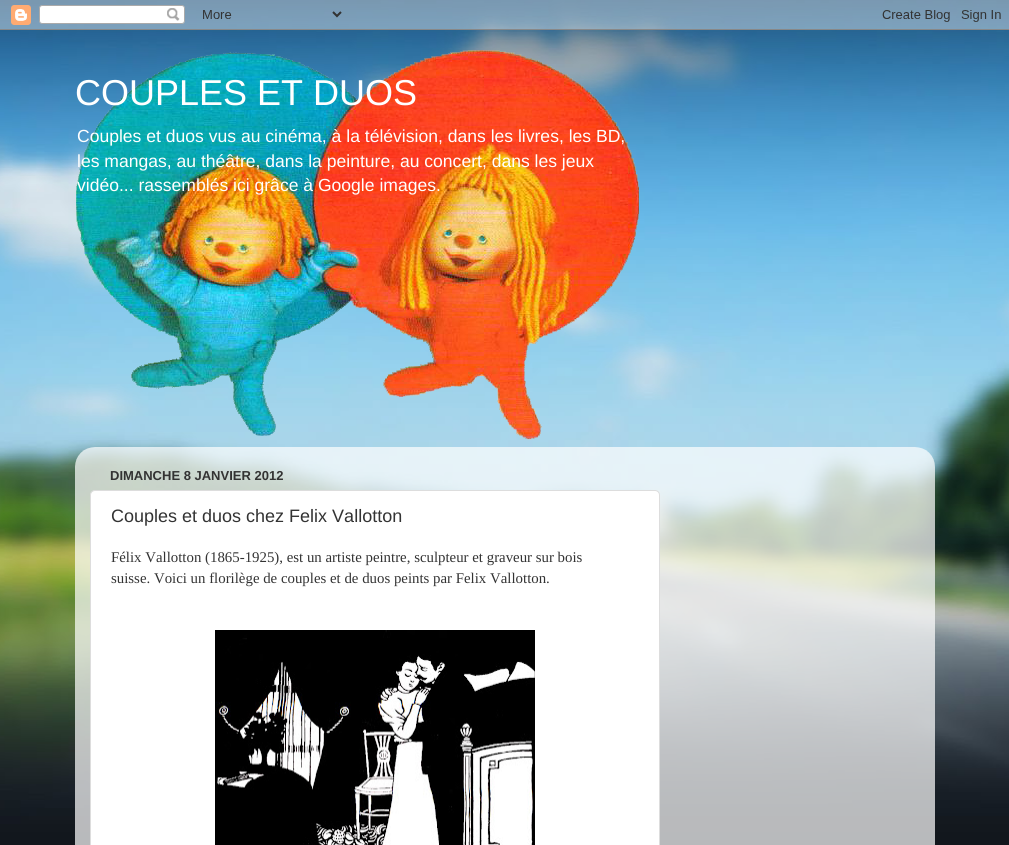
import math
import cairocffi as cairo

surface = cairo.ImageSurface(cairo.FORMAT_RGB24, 1009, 845)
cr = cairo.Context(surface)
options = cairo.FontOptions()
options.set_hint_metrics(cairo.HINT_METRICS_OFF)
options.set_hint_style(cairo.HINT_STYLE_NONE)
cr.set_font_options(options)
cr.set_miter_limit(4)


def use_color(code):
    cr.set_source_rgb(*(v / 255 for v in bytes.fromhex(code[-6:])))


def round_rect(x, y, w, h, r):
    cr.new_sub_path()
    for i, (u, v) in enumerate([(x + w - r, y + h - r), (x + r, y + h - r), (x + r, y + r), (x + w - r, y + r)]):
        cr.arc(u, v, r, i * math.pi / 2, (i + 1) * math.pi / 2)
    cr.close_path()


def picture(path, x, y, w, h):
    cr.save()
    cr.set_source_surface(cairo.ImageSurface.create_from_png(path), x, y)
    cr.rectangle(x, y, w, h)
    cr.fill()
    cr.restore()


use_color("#ffffff")
cr.paint()
picture("img1.png", 0, 0, 1009, 845)
picture("img2.png", 0, 0, 1009, 30)
picture("img3.png", 76, 50, 563, 390)
cr.select_font_face("Liberation Sans")
cr.set_font_size(36)
use_color("#ffffff")
cr.move_to(75, 105)
cr.show_text("COUPLES ET DUOS")
cr.set_font_size(17.55)
cr.move_to(77, 142)
cr.show_text("Couples et duos vus au cinéma, à la télévision, dans les livres, les BD,")
cr.move_to(77, 167)
cr.show_text("les mangas, au théâtre, dans la peinture, au concert, dans les jeux")
cr.move_to(77, 191)
cr.show_text("vidéo... rassemblés ici grâce à Google images.")
picture("img4.png", 75, 447, 860, 398)
cr.select_font_face("Liberation Sans", cairo.FONT_SLANT_NORMAL, cairo.FONT_WEIGHT_BOLD)
cr.set_font_size(13)
use_color("#333333")
cr.move_to(110, 480)
cr.show_text("DIMANCHE 8 JANVIER 2012")
use_color("#ffffff")
round_rect(90.5, 490.5, 569, 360, 4.5)
cr.fill_preserve()
use_color("#dddddd")
cr.set_line_width(1)
cr.stroke()
cr.select_font_face("Liberation Sans")
cr.set_font_size(18)
use_color("#333333")
cr.move_to(111, 522)
cr.show_text("Couples et duos chez Felix Vallotton")
cr.select_font_face("Liberation Serif")
cr.set_font_size(14.85)
cr.move_to(111, 562)
cr.show_text("Félix Vallotton (1865-1925), est un artiste peintre, sculpteur et graveur sur bois")
cr.move_to(111, 583)
cr.show_text("suisse. Voici un florilège de couples et de duos peints par Felix Vallotton.")
picture("img5.png", 215, 630, 320, 215)
surface.write_to_png("result.png")
